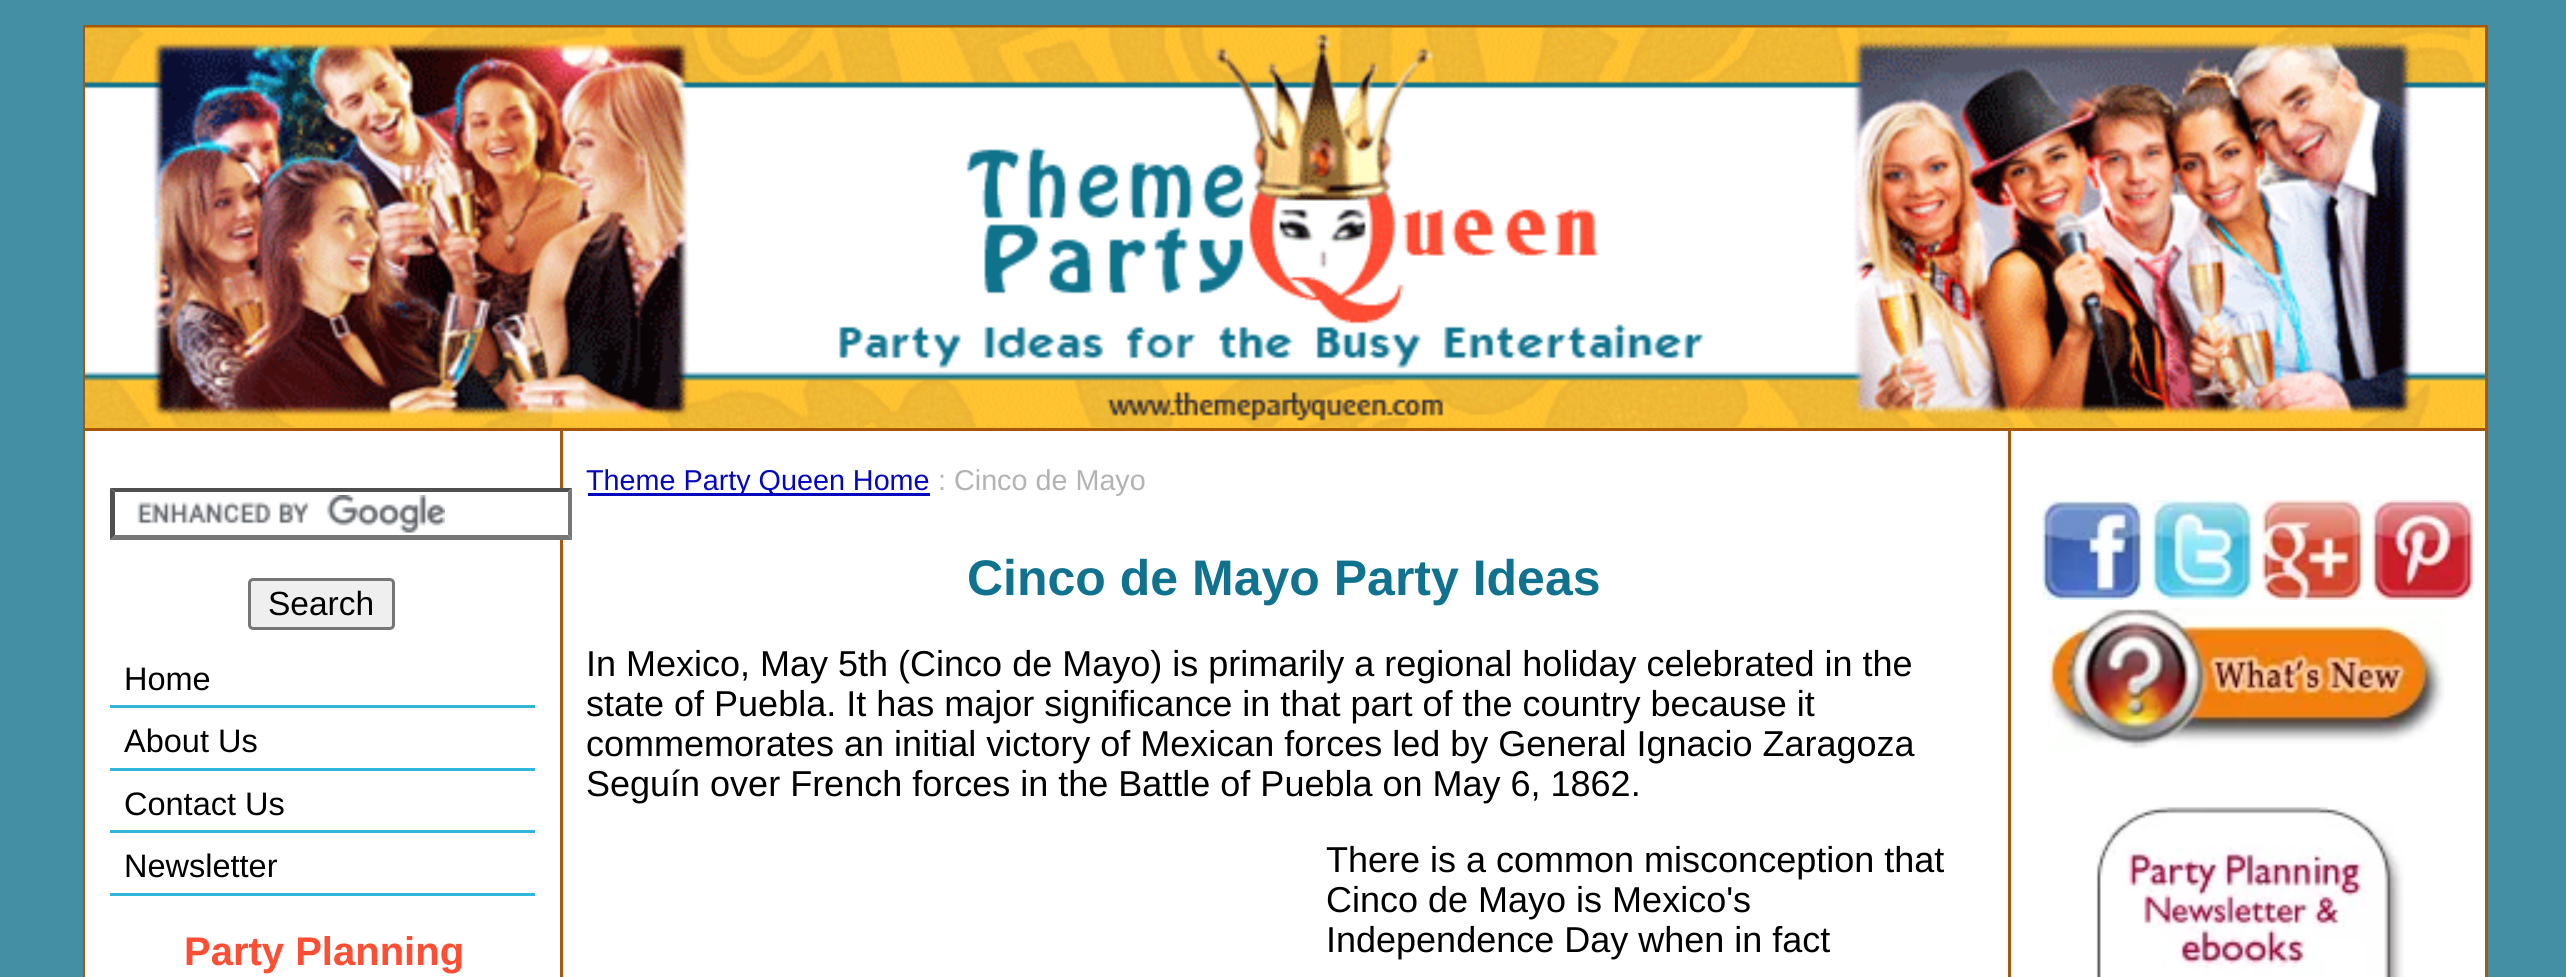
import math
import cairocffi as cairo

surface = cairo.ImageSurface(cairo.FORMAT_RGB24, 2566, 977)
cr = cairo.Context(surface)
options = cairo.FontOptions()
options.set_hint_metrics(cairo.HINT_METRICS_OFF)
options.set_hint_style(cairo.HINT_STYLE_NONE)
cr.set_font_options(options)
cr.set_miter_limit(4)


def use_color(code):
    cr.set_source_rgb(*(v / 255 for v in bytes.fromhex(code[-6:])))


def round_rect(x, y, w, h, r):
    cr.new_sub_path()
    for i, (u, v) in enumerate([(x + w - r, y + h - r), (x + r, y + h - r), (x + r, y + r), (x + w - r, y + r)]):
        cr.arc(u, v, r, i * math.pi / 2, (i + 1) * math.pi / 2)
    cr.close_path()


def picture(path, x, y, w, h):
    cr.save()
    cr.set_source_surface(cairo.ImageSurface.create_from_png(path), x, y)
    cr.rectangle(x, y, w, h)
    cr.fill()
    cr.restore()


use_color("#448fa3")
cr.paint()
cr.rectangle(84.5, 26.5, 2402, 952)
use_color("#a65708")
cr.set_line_width(3)
cr.stroke()
picture("img1.png", 85, 27, 2400, 401)
use_color("#ffffff")
cr.rectangle(85, 431, 2400, 546)
cr.fill()
use_color("#a65708")
cr.rectangle(2008, 430, 3, 547)
cr.fill()
cr.rectangle(560, 430, 3, 547)
cr.fill()
cr.rectangle(85, 428, 2400, 3)
cr.fill()
use_color("#ffffff")
cr.rectangle(560, 488, 3, 52)
cr.fill()
picture("img2.png", 137, 495, 308, 38)
use_color("#4f4f4f")
cr.new_path()
cr.move_to(110, 488)
cr.line_to(572, 488)
cr.line_to(568, 492)
cr.line_to(115, 492)
cr.close_path()
cr.fill()
use_color("#767676")
cr.new_path()
cr.move_to(572, 488)
cr.line_to(572, 540)
cr.line_to(568, 535)
cr.line_to(568, 492)
cr.close_path()
cr.fill()
cr.new_path()
cr.move_to(572, 540)
cr.line_to(110, 540)
cr.line_to(115, 535)
cr.line_to(568, 535)
cr.close_path()
cr.fill()
use_color("#4f4f4f")
cr.new_path()
cr.move_to(110, 540)
cr.line_to(110, 488)
cr.line_to(115, 492)
cr.line_to(115, 535)
cr.close_path()
cr.fill()
use_color("#efefef")
round_rect(249.5, 579.5, 144, 49, 3.5)
cr.fill_preserve()
use_color("#767676")
cr.stroke()
cr.select_font_face("Liberation Sans")
cr.set_font_size(33.5)
use_color("#000000")
cr.move_to(268, 615)
cr.show_text("Search")
use_color("#31b5da")
cr.rectangle(110, 705, 425, 3)
cr.fill()
cr.set_font_size(32.5)
use_color("#000000")
cr.move_to(124, 690)
cr.show_text("Home")
use_color("#31b5da")
cr.rectangle(110, 768, 425, 3)
cr.fill()
use_color("#000000")
cr.move_to(124, 752)
cr.show_text("About Us")
use_color("#31b5da")
cr.rectangle(110, 830, 425, 3)
cr.fill()
use_color("#000000")
cr.move_to(124, 815)
cr.show_text("Contact Us")
use_color("#31b5da")
cr.rectangle(110, 893, 425, 3)
cr.fill()
use_color("#000000")
cr.move_to(124, 877)
cr.show_text("Newsletter")
cr.select_font_face("Liberation Sans", cairo.FONT_SLANT_NORMAL, cairo.FONT_WEIGHT_BOLD)
cr.set_font_size(40)
use_color("#ff4e33")
cr.move_to(184, 965)
cr.show_text("Party Planning")
use_color("#0507bf")
cr.rectangle(588, 493, 342, 3)
cr.fill()
cr.select_font_face("Liberation Sans")
cr.set_font_size(28.75)
cr.move_to(586, 490)
cr.show_text("Theme Party Queen Home")
use_color("#b3b3b3")
cr.move_to(938, 490)
cr.show_text(": Cinco de Mayo")
cr.select_font_face("Liberation Sans", cairo.FONT_SLANT_NORMAL, cairo.FONT_WEIGHT_BOLD)
cr.set_font_size(50)
use_color("#10728e")
cr.move_to(967, 595)
cr.show_text("Cinco de Mayo Party Ideas")
cr.select_font_face("Liberation Sans")
cr.set_font_size(36)
use_color("#000000")
cr.move_to(586, 676)
cr.show_text("In Mexico, May 5th (Cinco de Mayo) is primarily a regional holiday celebrated in the")
cr.move_to(586, 716)
cr.show_text("state of Puebla. It has major significance in that part of the country because it")
cr.move_to(586, 756)
cr.show_text("commemorates an initial victory of Mexican forces led by General Ignacio Zaragoza")
cr.move_to(586, 796)
cr.show_text("Seguín over French forces in the Battle of Puebla on May 6, 1862.")
cr.move_to(1326, 872)
cr.show_text("There is a common misconception that")
cr.move_to(1326, 912)
cr.show_text("Cinco de Mayo is Mexico's")
cr.move_to(1326, 952)
cr.show_text("Independence Day when in fact")
picture("img3.png", 2042, 500, 101, 100)
picture("img4.png", 2152, 500, 101, 100)
picture("img5.png", 2262, 500, 101, 100)
picture("img6.png", 2372, 500, 101, 100)
picture("img7.png", 2047, 607, 398, 142)
picture("img8.png", 2095, 806, 309, 171)
surface.write_to_png("result.png")
